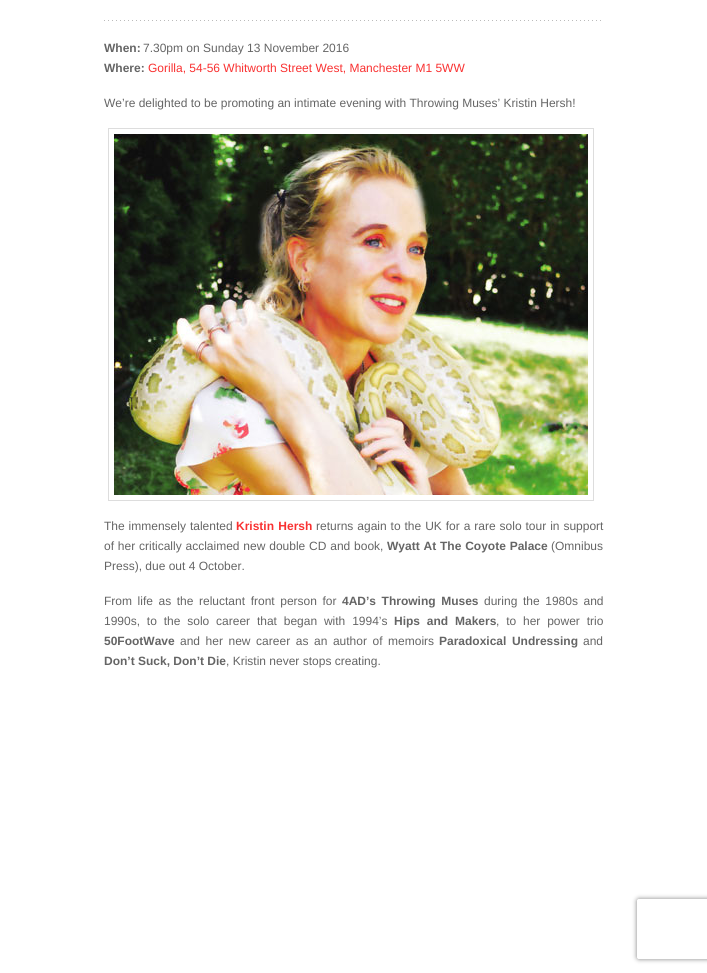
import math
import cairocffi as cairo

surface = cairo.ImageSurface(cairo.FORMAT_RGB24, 707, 973)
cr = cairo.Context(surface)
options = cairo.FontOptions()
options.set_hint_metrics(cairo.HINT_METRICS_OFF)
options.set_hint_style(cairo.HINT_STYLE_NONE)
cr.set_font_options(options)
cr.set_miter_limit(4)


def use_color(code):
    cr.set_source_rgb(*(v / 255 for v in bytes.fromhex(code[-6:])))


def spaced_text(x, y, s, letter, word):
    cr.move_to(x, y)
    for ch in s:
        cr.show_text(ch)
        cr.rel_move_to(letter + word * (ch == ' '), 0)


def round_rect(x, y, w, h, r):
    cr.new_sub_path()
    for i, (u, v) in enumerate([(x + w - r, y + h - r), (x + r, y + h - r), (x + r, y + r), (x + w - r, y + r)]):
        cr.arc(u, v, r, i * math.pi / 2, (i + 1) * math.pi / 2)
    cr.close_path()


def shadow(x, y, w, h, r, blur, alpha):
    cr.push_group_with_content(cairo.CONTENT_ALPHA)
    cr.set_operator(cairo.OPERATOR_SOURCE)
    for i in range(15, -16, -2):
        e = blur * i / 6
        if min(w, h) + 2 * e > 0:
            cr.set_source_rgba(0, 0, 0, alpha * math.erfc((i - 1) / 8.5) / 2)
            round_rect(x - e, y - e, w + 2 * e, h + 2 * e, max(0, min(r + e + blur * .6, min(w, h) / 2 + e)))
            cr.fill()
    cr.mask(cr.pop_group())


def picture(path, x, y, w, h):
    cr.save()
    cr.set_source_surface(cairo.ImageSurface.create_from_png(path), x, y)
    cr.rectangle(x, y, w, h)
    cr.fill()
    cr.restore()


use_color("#ffffff")
cr.paint()
picture("img1.png", 104, 20, 497, 1)
cr.select_font_face("Liberation Sans", cairo.FONT_SLANT_NORMAL, cairo.FONT_WEIGHT_BOLD)
cr.set_font_size(12)
use_color("#656565")
cr.move_to(104, 52)
cr.show_text("When:")
cr.select_font_face("Liberation Sans")
cr.move_to(143, 52)
cr.show_text("7.30pm on Sunday 13 November 2016")
cr.select_font_face("Liberation Sans", cairo.FONT_SLANT_NORMAL, cairo.FONT_WEIGHT_BOLD)
cr.move_to(104, 72)
cr.show_text("Where:")
cr.select_font_face("Liberation Sans")
use_color("#f93131")
cr.move_to(148, 72)
cr.show_text("Gorilla, 54-56 Whitworth Street West, Manchester M1 5WW")
use_color("#656565")
cr.move_to(104, 107)
cr.show_text("We’re delighted to be promoting an intimate evening with Throwing Muses’ Kristin Hersh!")
cr.rectangle(108.5, 128.5, 485, 372)
use_color("#dddddd")
cr.set_line_width(1)
cr.stroke()
picture("img2.png", 114, 134, 474, 361)
use_color("#656565")
spaced_text(104, 530, "The immensely talented", 0, 0.6)
cr.select_font_face("Liberation Sans", cairo.FONT_SLANT_NORMAL, cairo.FONT_WEIGHT_BOLD)
use_color("#f93131")
spaced_text(236, 530, "Kristin Hersh", 0, 1)
cr.select_font_face("Liberation Sans")
use_color("#656565")
spaced_text(316, 530, "returns again to the UK for a rare solo tour in support", 0, 0.6)
spaced_text(104, 550, "of her critically acclaimed new double CD and book,", 0, 0.5)
cr.select_font_face("Liberation Sans", cairo.FONT_SLANT_NORMAL, cairo.FONT_WEIGHT_BOLD)
spaced_text(387, 550, "Wyatt At The Coyote Palace", 0, 0.5)
cr.select_font_face("Liberation Sans")
cr.move_to(551, 550)
cr.show_text("(Omnibus")
cr.move_to(104, 570)
cr.show_text("Press), due out 4 October.")
spaced_text(104, 605, "From life as the reluctant front person for", 0, 2.25)
cr.select_font_face("Liberation Sans", cairo.FONT_SLANT_NORMAL, cairo.FONT_WEIGHT_BOLD)
spaced_text(342, 605, "4AD’s Throwing Muses", 0, 2.25)
cr.select_font_face("Liberation Sans")
spaced_text(484, 605, "during the 1980s and", 0, 2.25)
spaced_text(104, 625, "1990s, to the solo career that began with 1994’s", 0, 3.5)
cr.select_font_face("Liberation Sans", cairo.FONT_SLANT_NORMAL, cairo.FONT_WEIGHT_BOLD)
spaced_text(394, 625, "Hips and Makers", 0, 3.5)
cr.select_font_face("Liberation Sans")
spaced_text(496, 625, ", to her power trio", 0, 3.5)
cr.select_font_face("Liberation Sans", cairo.FONT_SLANT_NORMAL, cairo.FONT_WEIGHT_BOLD)
cr.move_to(104, 645)
cr.show_text("50FootWave")
cr.select_font_face("Liberation Sans")
spaced_text(180, 645, "and her new career as an author of memoirs", 0, 2.25)
cr.select_font_face("Liberation Sans", cairo.FONT_SLANT_NORMAL, cairo.FONT_WEIGHT_BOLD)
spaced_text(439, 645, "Paradoxical Undressing", 0, 2.25)
cr.select_font_face("Liberation Sans")
cr.move_to(583, 645)
cr.show_text("and")
cr.select_font_face("Liberation Sans", cairo.FONT_SLANT_NORMAL, cairo.FONT_WEIGHT_BOLD)
cr.move_to(104, 665)
cr.show_text("Don’t Suck, Don’t Die")
cr.select_font_face("Liberation Sans")
cr.move_to(226, 665)
cr.show_text(", Kristin never stops creating.")
cr.save()
cr.set_fill_rule(cairo.FILL_RULE_EVEN_ODD)
cr.new_path()
cr.move_to(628, 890)
cr.line_to(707, 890)
cr.line_to(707, 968)
cr.line_to(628, 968)
cr.close_path()
cr.move_to(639, 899)
cr.line_to(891, 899)
cr.curve_to(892, 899, 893, 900, 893, 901)
cr.line_to(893, 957)
cr.curve_to(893, 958, 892, 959, 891, 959)
cr.line_to(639, 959)
cr.curve_to(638, 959, 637, 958, 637, 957)
cr.line_to(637, 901)
cr.curve_to(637, 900, 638, 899, 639, 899)
cr.close_path()
cr.clip()
use_color("#808080")
shadow(637, 899, 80, 60, 2, 2.5, 1)
cr.restore()
surface.write_to_png("result.png")
